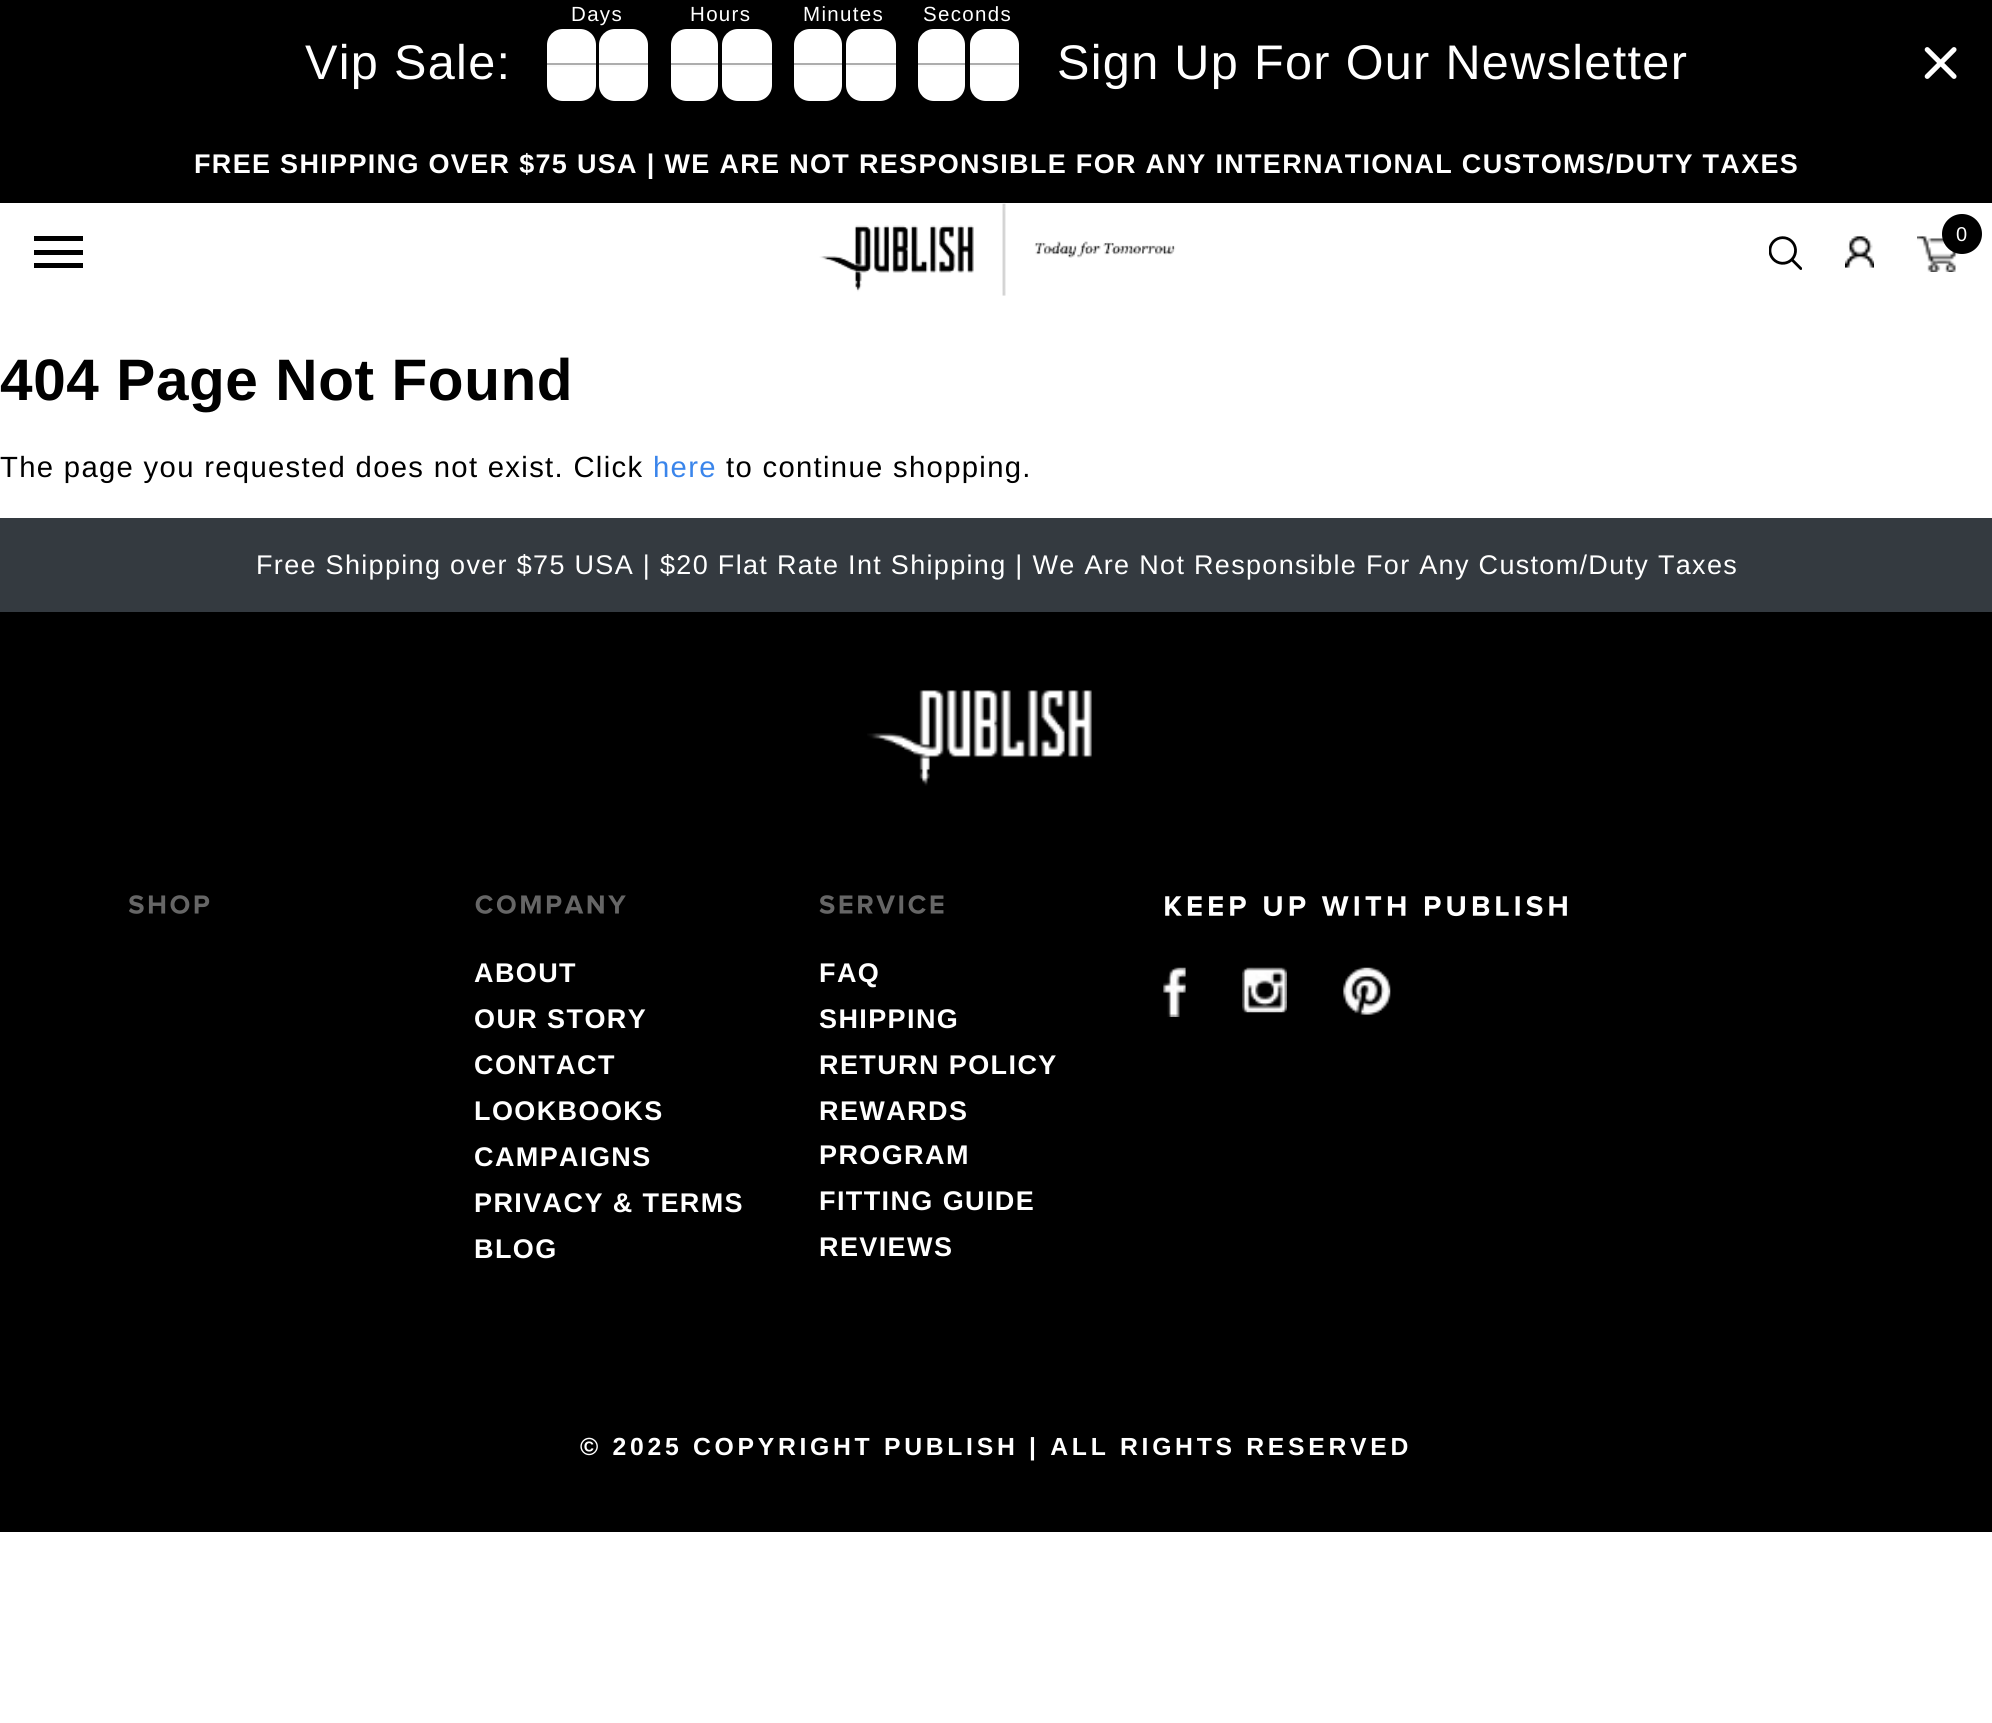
import math
import cairocffi as cairo

surface = cairo.ImageSurface(cairo.FORMAT_RGB24, 1992, 1723)
cr = cairo.Context(surface)
options = cairo.FontOptions()
options.set_hint_metrics(cairo.HINT_METRICS_OFF)
options.set_hint_style(cairo.HINT_STYLE_NONE)
cr.set_font_options(options)
cr.set_miter_limit(4)


def use_color(code):
    cr.set_source_rgb(*(v / 255 for v in bytes.fromhex(code[-6:])))


def spaced_text(x, y, s, letter, word):
    cr.move_to(x, y)
    for ch in s:
        cr.show_text(ch)
        cr.rel_move_to(letter + word * (ch == ' '), 0)


def picture(path, x, y, w, h):
    cr.save()
    cr.set_source_surface(cairo.ImageSurface.create_from_png(path), x, y)
    cr.rectangle(x, y, w, h)
    cr.fill()
    cr.restore()


use_color("#ffffff")
cr.paint()
use_color("#000000")
cr.rectangle(0, 0, 1992, 203)
cr.fill()
cr.select_font_face("Liberation Sans")
cr.set_font_size(20.5)
use_color("#ffffff")
spaced_text(571, 21, "Days", 1.32, 0)
cr.new_path()
cr.move_to(563, 29)
cr.line_to(580, 29)
cr.curve_to(589, 29, 596, 36, 596, 45)
cr.line_to(596, 65)
cr.line_to(547, 65)
cr.line_to(547, 45)
cr.curve_to(547, 36, 554, 29, 563, 29)
cr.close_path()
cr.fill()
cr.set_source_rgba(0.2, 0.2, 0.2, 0.4)
cr.rectangle(547, 63, 49, 2)
cr.fill()
use_color("#ffffff")
cr.new_path()
cr.move_to(547, 65)
cr.line_to(596, 65)
cr.line_to(596, 85)
cr.curve_to(596, 94, 589, 101, 580, 101)
cr.line_to(563, 101)
cr.curve_to(554, 101, 547, 94, 547, 85)
cr.close_path()
cr.fill()
cr.set_source_rgba(0.8, 0.8, 0.8, 0.1)
cr.rectangle(547, 65, 49, 2)
cr.fill()
use_color("#ffffff")
cr.new_path()
cr.move_to(615, 29)
cr.line_to(632, 29)
cr.curve_to(641, 29, 648, 36, 648, 45)
cr.line_to(648, 65)
cr.line_to(599, 65)
cr.line_to(599, 45)
cr.curve_to(599, 36, 606, 29, 615, 29)
cr.close_path()
cr.fill()
cr.set_source_rgba(0.2, 0.2, 0.2, 0.4)
cr.rectangle(599, 63, 49, 2)
cr.fill()
use_color("#ffffff")
cr.new_path()
cr.move_to(599, 65)
cr.line_to(648, 65)
cr.line_to(648, 85)
cr.curve_to(648, 94, 641, 101, 632, 101)
cr.line_to(615, 101)
cr.curve_to(606, 101, 599, 94, 599, 85)
cr.close_path()
cr.fill()
cr.set_source_rgba(0.8, 0.8, 0.8, 0.1)
cr.rectangle(599, 65, 49, 2)
cr.fill()
use_color("#ffffff")
spaced_text(690, 21, "Hours", 1.32, 0)
cr.new_path()
cr.move_to(687, 29)
cr.line_to(702, 29)
cr.curve_to(711, 29, 718, 36, 718, 45)
cr.line_to(718, 65)
cr.line_to(671, 65)
cr.line_to(671, 45)
cr.curve_to(671, 36, 678, 29, 687, 29)
cr.close_path()
cr.fill()
cr.set_source_rgba(0.2, 0.2, 0.2, 0.4)
cr.rectangle(671, 63, 47, 2)
cr.fill()
use_color("#ffffff")
cr.new_path()
cr.move_to(671, 65)
cr.line_to(718, 65)
cr.line_to(718, 85)
cr.curve_to(718, 94, 711, 101, 702, 101)
cr.line_to(687, 101)
cr.curve_to(678, 101, 671, 94, 671, 85)
cr.close_path()
cr.fill()
cr.set_source_rgba(0.8, 0.8, 0.8, 0.1)
cr.rectangle(671, 65, 47, 2)
cr.fill()
use_color("#ffffff")
cr.new_path()
cr.move_to(738, 29)
cr.line_to(756, 29)
cr.curve_to(765, 29, 772, 36, 772, 45)
cr.line_to(772, 65)
cr.line_to(722, 65)
cr.line_to(722, 45)
cr.curve_to(722, 36, 729, 29, 738, 29)
cr.close_path()
cr.fill()
cr.set_source_rgba(0.2, 0.2, 0.2, 0.4)
cr.rectangle(722, 63, 50, 2)
cr.fill()
use_color("#ffffff")
cr.new_path()
cr.move_to(722, 65)
cr.line_to(772, 65)
cr.line_to(772, 85)
cr.curve_to(772, 94, 765, 101, 756, 101)
cr.line_to(738, 101)
cr.curve_to(729, 101, 722, 94, 722, 85)
cr.close_path()
cr.fill()
cr.set_source_rgba(0.8, 0.8, 0.8, 0.1)
cr.rectangle(722, 65, 50, 2)
cr.fill()
use_color("#ffffff")
spaced_text(803, 21, "Minutes", 1.32, 0)
cr.new_path()
cr.move_to(810, 29)
cr.line_to(826, 29)
cr.curve_to(835, 29, 842, 36, 842, 45)
cr.line_to(842, 65)
cr.line_to(794, 65)
cr.line_to(794, 45)
cr.curve_to(794, 36, 801, 29, 810, 29)
cr.close_path()
cr.fill()
cr.set_source_rgba(0.2, 0.2, 0.2, 0.4)
cr.rectangle(794, 63, 48, 2)
cr.fill()
use_color("#ffffff")
cr.new_path()
cr.move_to(794, 65)
cr.line_to(842, 65)
cr.line_to(842, 85)
cr.curve_to(842, 94, 835, 101, 826, 101)
cr.line_to(810, 101)
cr.curve_to(801, 101, 794, 94, 794, 85)
cr.close_path()
cr.fill()
cr.set_source_rgba(0.8, 0.8, 0.8, 0.1)
cr.rectangle(794, 65, 48, 2)
cr.fill()
use_color("#ffffff")
cr.new_path()
cr.move_to(862, 29)
cr.line_to(880, 29)
cr.curve_to(889, 29, 896, 36, 896, 45)
cr.line_to(896, 65)
cr.line_to(846, 65)
cr.line_to(846, 45)
cr.curve_to(846, 36, 853, 29, 862, 29)
cr.close_path()
cr.fill()
cr.set_source_rgba(0.2, 0.2, 0.2, 0.4)
cr.rectangle(846, 63, 50, 2)
cr.fill()
use_color("#ffffff")
cr.new_path()
cr.move_to(846, 65)
cr.line_to(896, 65)
cr.line_to(896, 85)
cr.curve_to(896, 94, 889, 101, 880, 101)
cr.line_to(862, 101)
cr.curve_to(853, 101, 846, 94, 846, 85)
cr.close_path()
cr.fill()
cr.set_source_rgba(0.8, 0.8, 0.8, 0.1)
cr.rectangle(846, 65, 50, 2)
cr.fill()
use_color("#ffffff")
spaced_text(923, 21, "Seconds", 1.32, 0)
cr.new_path()
cr.move_to(934, 29)
cr.line_to(949, 29)
cr.curve_to(958, 29, 965, 36, 965, 45)
cr.line_to(965, 65)
cr.line_to(918, 65)
cr.line_to(918, 45)
cr.curve_to(918, 36, 925, 29, 934, 29)
cr.close_path()
cr.fill()
cr.set_source_rgba(0.2, 0.2, 0.2, 0.4)
cr.rectangle(918, 63, 47, 2)
cr.fill()
use_color("#ffffff")
cr.new_path()
cr.move_to(918, 65)
cr.line_to(965, 65)
cr.line_to(965, 85)
cr.curve_to(965, 94, 958, 101, 949, 101)
cr.line_to(934, 101)
cr.curve_to(925, 101, 918, 94, 918, 85)
cr.close_path()
cr.fill()
cr.set_source_rgba(0.8, 0.8, 0.8, 0.1)
cr.rectangle(918, 65, 47, 2)
cr.fill()
use_color("#ffffff")
cr.new_path()
cr.move_to(986, 29)
cr.line_to(1003, 29)
cr.curve_to(1012, 29, 1019, 36, 1019, 45)
cr.line_to(1019, 65)
cr.line_to(970, 65)
cr.line_to(970, 45)
cr.curve_to(970, 36, 977, 29, 986, 29)
cr.close_path()
cr.fill()
cr.set_source_rgba(0.2, 0.2, 0.2, 0.4)
cr.rectangle(970, 63, 49, 2)
cr.fill()
use_color("#ffffff")
cr.new_path()
cr.move_to(970, 65)
cr.line_to(1019, 65)
cr.line_to(1019, 85)
cr.curve_to(1019, 94, 1012, 101, 1003, 101)
cr.line_to(986, 101)
cr.curve_to(977, 101, 970, 94, 970, 85)
cr.close_path()
cr.fill()
cr.set_source_rgba(0.8, 0.8, 0.8, 0.1)
cr.rectangle(970, 65, 49, 2)
cr.fill()
cr.set_font_size(48.6)
use_color("#ffffff")
spaced_text(305, 79, "Vip Sale:", 1.32, 0)
spaced_text(1057, 79, "Sign Up For Our Newsletter", 1.32, 0)
picture("img1.png", 1924, 47, 33, 32)
cr.select_font_face("Liberation Sans", cairo.FONT_SLANT_NORMAL, cairo.FONT_WEIGHT_BOLD)
cr.set_font_size(27)
spaced_text(194, 173, "FREE SHIPPING OVER $75 USA | WE ARE NOT RESPONSIBLE FOR ANY INTERNATIONAL CUSTOMS/DUTY TAXES", 1.32, 0)
picture("img2.png", 819, 202, 357, 94)
picture("img3.png", 1917, 236, 41, 36)
use_color("#000000")
cr.arc(1962, 234, 20, 0, 2 * math.pi)
cr.fill()
cr.select_font_face("Liberation Sans")
cr.set_font_size(20)
use_color("#ffffff")
spaced_text(1956, 241, "0", 1.32, 0)
picture("img4.png", 1769, 236, 33, 34)
picture("img5.png", 1845, 236, 29, 32)
use_color("#000000")
cr.rectangle(34, 236, 49, 5)
cr.fill()
cr.rectangle(34, 250, 49, 5)
cr.fill()
cr.rectangle(34, 263, 49, 5)
cr.fill()
cr.select_font_face("Liberation Sans", cairo.FONT_SLANT_NORMAL, cairo.FONT_WEIGHT_BOLD)
cr.set_font_size(58.5)
spaced_text(0, 400, "404 Page Not Found", 0.6, 0)
cr.select_font_face("Liberation Sans")
cr.set_font_size(29.25)
spaced_text(0, 477, "The page you requested does not exist. Click", 1.32, 0)
use_color("#3a85eb")
spaced_text(653, 477, "here", 1.32, 0)
use_color("#000000")
spaced_text(726, 477, "to continue shopping.", 1.32, 0)
use_color("#343a40")
cr.rectangle(0, 518, 1992, 94)
cr.fill()
cr.set_font_size(27)
use_color("#ffffff")
spaced_text(256, 574, "Free Shipping over $75 USA | $20 Flat Rate Int Shipping | We Are Not Responsible For Any Custom/Duty Taxes", 1.32, 0)
use_color("#000000")
cr.rectangle(0, 612, 1992, 920)
cr.fill()
picture("img6.png", 867, 690, 225, 96)
picture("img7.png", 129, 895, 81, 19)
picture("img8.png", 475, 895, 151, 19)
cr.select_font_face("Liberation Sans", cairo.FONT_SLANT_NORMAL, cairo.FONT_WEIGHT_BOLD)
use_color("#ffffff")
spaced_text(474, 982, "ABOUT", 1.4, 0)
spaced_text(474, 1028, "OUR STORY", 1.4, 0)
spaced_text(474, 1074, "CONTACT", 1.4, 0)
spaced_text(474, 1120, "LOOKBOOKS", 1.4, 0)
spaced_text(474, 1166, "CAMPAIGNS", 1.4, 0)
spaced_text(474, 1212, "PRIVACY & TERMS", 1.4, 0)
spaced_text(474, 1258, "BLOG", 1.4, 0)
picture("img9.png", 819, 895, 125, 19)
spaced_text(819, 982, "FAQ", 1.4, 0)
spaced_text(819, 1028, "SHIPPING", 1.4, 0)
spaced_text(819, 1074, "RETURN POLICY", 1.4, 0)
spaced_text(819, 1120, "REWARDS", 1.4, 0)
spaced_text(819, 1164, "PROGRAM", 1.4, 0)
spaced_text(819, 1210, "FITTING GUIDE", 1.4, 0)
spaced_text(819, 1256, "REVIEWS", 1.4, 0)
picture("img10.png", 1165, 895, 402, 22)
picture("img11.png", 1163, 967, 23, 50)
picture("img12.png", 1242, 967, 45, 46)
picture("img13.png", 1343, 967, 48, 48)
cr.set_font_size(24.75)
spaced_text(580, 1455, "© 2025 COPYRIGHT PUBLISH | ALL RIGHTS RESERVED", 3.7, 0)
surface.write_to_png("result.png")
